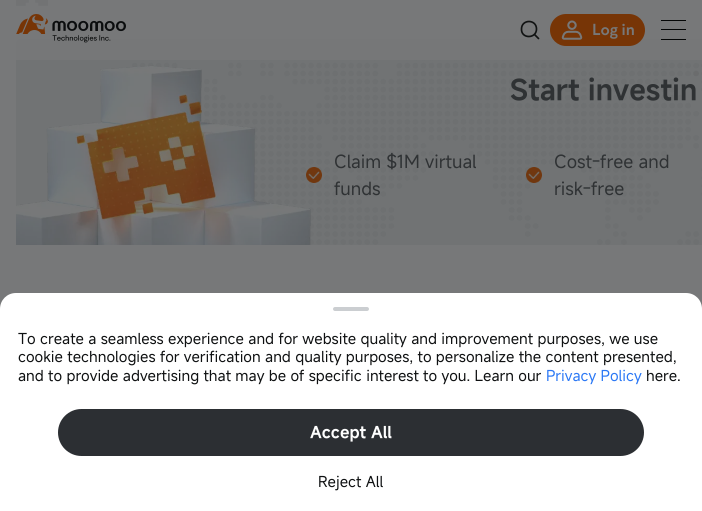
import math
import cairocffi as cairo

surface = cairo.ImageSurface(cairo.FORMAT_RGB24, 702, 511)
cr = cairo.Context(surface)
options = cairo.FontOptions()
options.set_hint_metrics(cairo.HINT_METRICS_OFF)
options.set_hint_style(cairo.HINT_STYLE_NONE)
cr.set_font_options(options)
cr.set_miter_limit(4)


def use_color(code):
    cr.set_source_rgb(*(v / 255 for v in bytes.fromhex(code[-6:])))


def round_rect(x, y, w, h, r):
    cr.new_sub_path()
    for i, (u, v) in enumerate([(x + w - r, y + h - r), (x + r, y + h - r), (x + r, y + r), (x + w - r, y + r)]):
        cr.arc(u, v, r, i * math.pi / 2, (i + 1) * math.pi / 2)
    cr.close_path()


def picture(path, x, y, w, h):
    cr.save()
    cr.set_source_surface(cairo.ImageSurface.create_from_png(path), x, y)
    cr.rectangle(x, y, w, h)
    cr.fill()
    cr.restore()


use_color("#777879")
cr.paint()
picture("img4.png", 16, 0, 32, 6)
use_color("#717374")
round_rect(16, 39, 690, 206, 4)
cr.fill()
picture("img5.png", 132, 39, 570, 206)
cr.set_source_rgba(0.467, 0.471, 0.475, 0.95)
cr.rectangle(16, 0, 686, 60)
cr.fill()
picture("img1.png", 16, 14, 110, 20)
picture("img2.png", 52, 35, 59, 8)
cr.new_path()
cr.move_to(538.5, 38.5)
cr.line_to(534.5, 34.5)
cr.move_to(536.5, 29)
cr.curve_to(536.5, 39, 521, 39, 521.5, 29)
cr.curve_to(521.5, 19, 536.5, 19, 536.5, 29)
cr.close_path()
use_color("#111313")
cr.set_line_width(1.7)
cr.set_line_cap(cairo.LINE_CAP_ROUND)
cr.set_line_join(cairo.LINE_JOIN_ROUND)
cr.stroke()
use_color("#773506")
round_rect(550, 14, 95, 32, 16)
cr.fill()
picture("img3.png", 561, 20, 22, 20)
cr.select_font_face("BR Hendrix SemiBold")
cr.set_font_size(16)
use_color("#777879")
cr.move_to(592, 35)
cr.show_text("Log in")
use_color("#040606")
cr.rectangle(661, 20, 25, 1)
cr.fill()
cr.rectangle(661, 39, 25, 1)
cr.fill()
cr.rectangle(661, 29, 25, 1)
cr.fill()
picture("img7.png", 306, 167, 16, 16)
picture("img6.png", 16, 65, 295, 180)
cr.select_font_face("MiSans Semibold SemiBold")
cr.set_font_size(28)
use_color("#2f3234")
cr.move_to(510, 100)
cr.show_text("Start investin")
cr.select_font_face("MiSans")
cr.set_font_size(18)
cr.move_to(334, 168)
cr.show_text("Claim $1M virtual")
cr.move_to(334, 195)
cr.show_text("funds")
picture("img8.png", 526, 167, 16, 16)
cr.move_to(554, 168)
cr.show_text("Cost-free and")
cr.move_to(554, 195)
cr.show_text("risk-free")
use_color("#ffffff")
cr.new_path()
cr.move_to(16, 293)
cr.line_to(686, 293)
cr.curve_to(695, 293, 702, 300, 702, 309)
cr.line_to(702, 511)
cr.line_to(0, 511)
cr.line_to(0, 309)
cr.curve_to(0, 300, 7, 293, 16, 293)
cr.close_path()
cr.fill()
use_color("#cbced1")
round_rect(333, 307, 36, 4, 2)
cr.fill()
cr.set_font_size(15)
use_color("#0f1112")
cr.move_to(18, 344)
cr.show_text("To create a seamless experience and for website quality and improvement purposes, we use")
cr.move_to(18, 362)
cr.show_text("cookie technologies for verification and quality purposes, to personalize the content presented,")
cr.move_to(18, 381)
cr.show_text("and to provide advertising that may be of specific interest to you. Learn our")
use_color("#2b78f5")
cr.move_to(546, 381)
cr.show_text("Privacy Policy")
use_color("#0f1112")
cr.move_to(646, 381)
cr.show_text("here.")
use_color("#2c2f33")
round_rect(58, 409, 586, 47, 23.5)
cr.fill()
cr.select_font_face("MiSans Semibold SemiBold")
cr.set_font_size(16)
use_color("#ffffff")
cr.move_to(310, 438)
cr.show_text("Accept All")
cr.select_font_face("MiSans")
cr.set_font_size(15)
use_color("#0f1112")
cr.move_to(318, 487)
cr.show_text("Reject All")
surface.write_to_png("result.png")
